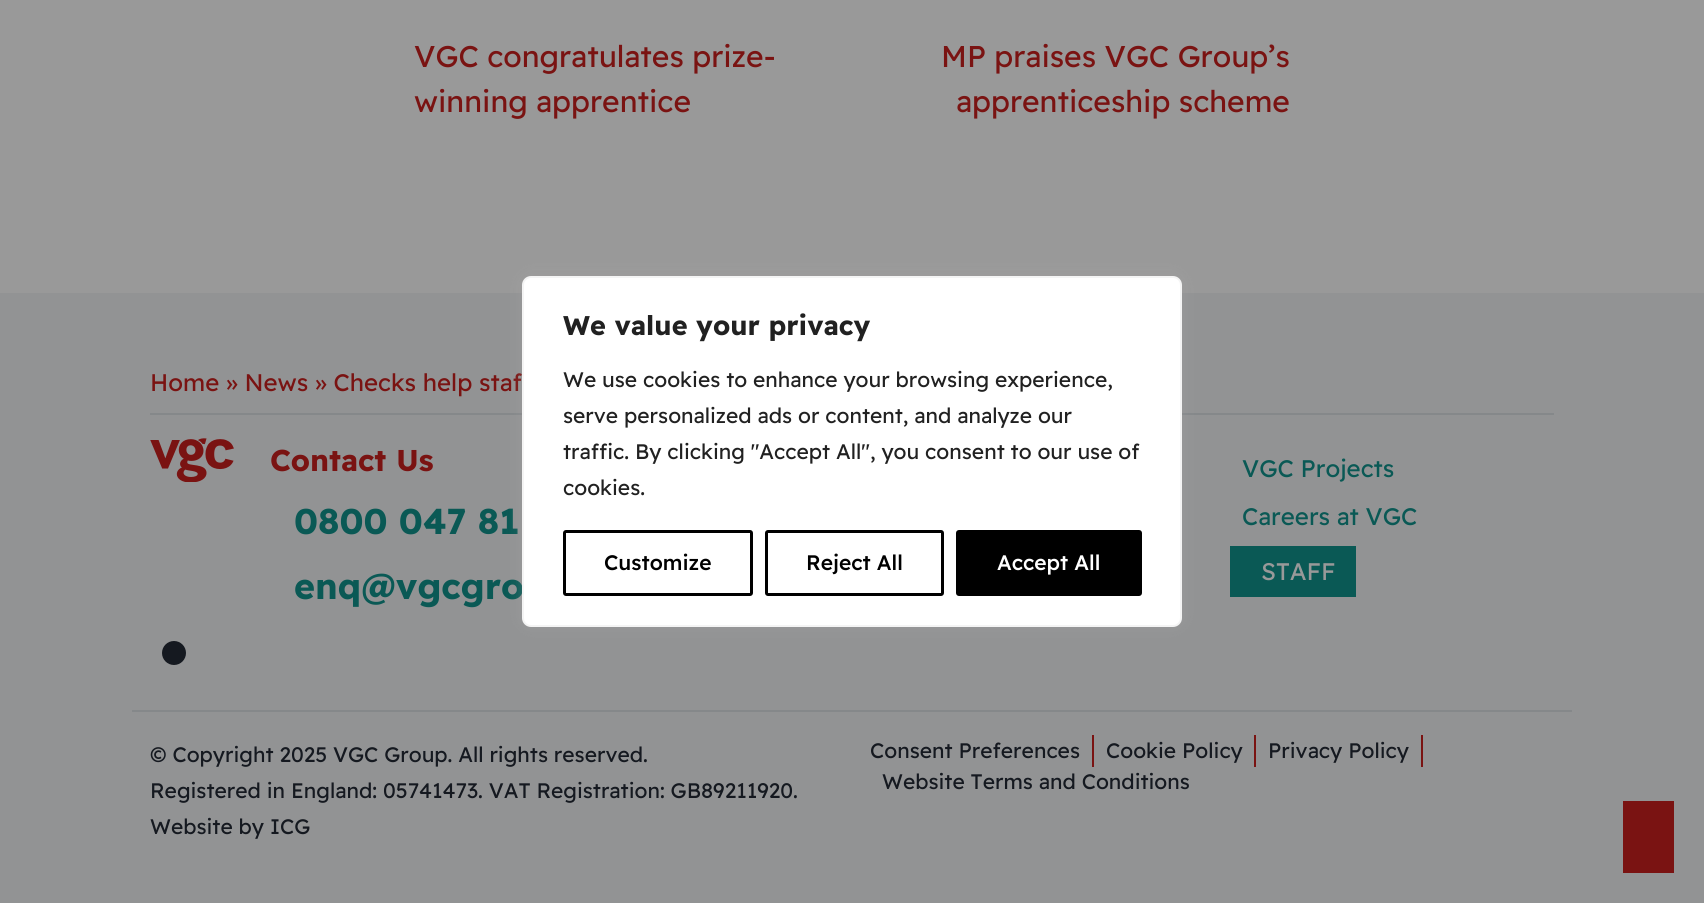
import math
import cairocffi as cairo

surface = cairo.ImageSurface(cairo.FORMAT_RGB24, 1704, 903)
cr = cairo.Context(surface)
options = cairo.FontOptions()
options.set_hint_metrics(cairo.HINT_METRICS_OFF)
options.set_hint_style(cairo.HINT_STYLE_NONE)
cr.set_font_options(options)
cr.set_miter_limit(4)


def use_color(code):
    cr.set_source_rgb(*(v / 255 for v in bytes.fromhex(code[-6:])))


def round_rect(x, y, w, h, r):
    cr.new_sub_path()
    for i, (u, v) in enumerate([(x + w - r, y + h - r), (x + r, y + h - r), (x + r, y + r), (x + w - r, y + r)]):
        cr.arc(u, v, r, i * math.pi / 2, (i + 1) * math.pi / 2)
    cr.close_path()


def shadow(x, y, w, h, r, blur, alpha):
    cr.push_group_with_content(cairo.CONTENT_ALPHA)
    cr.set_operator(cairo.OPERATOR_SOURCE)
    for i in range(15, -16, -2):
        e = blur * i / 6
        if min(w, h) + 2 * e > 0:
            cr.set_source_rgba(0, 0, 0, alpha * math.erfc((i - 1) / 8.5) / 2)
            round_rect(x - e, y - e, w + 2 * e, h + 2 * e, max(0, min(r + e + blur * .6, min(w, h) / 2 + e)))
            cr.fill()
    cr.mask(cr.pop_group())


def picture(path, x, y, w, h):
    cr.save()
    cr.set_source_surface(cairo.ImageSurface.create_from_png(path), x, y)
    cr.rectangle(x, y, w, h)
    cr.fill()
    cr.restore()


use_color("#999999")
cr.paint()
cr.select_font_face("Readex Pro")
cr.set_font_size(30)
use_color("#7a1312")
cr.move_to(414, 67)
cr.show_text("VGC congratulates prize-")
cr.move_to(414, 112)
cr.show_text("winning apprentice")
cr.move_to(941, 67)
cr.show_text("MP praises VGC Group’s")
cr.move_to(956, 112)
cr.show_text("apprenticeship scheme")
use_color("#929394")
cr.rectangle(0, 293, 1704, 610)
cr.fill()
use_color("#85888a")
cr.rectangle(150, 413, 1404, 2)
cr.fill()
cr.set_font_size(24)
use_color("#7a1312")
cr.move_to(150, 391)
cr.show_text("Home » News » Checks help staf")
picture("img1.png", 150, 438, 84, 44)
cr.select_font_face("Readex Pro", cairo.FONT_SLANT_NORMAL, cairo.FONT_WEIGHT_BOLD)
cr.set_font_size(30)
cr.move_to(270, 471)
cr.show_text("Contact Us")
cr.set_font_size(35.75)
use_color("#0a5955")
cr.move_to(294, 534)
cr.show_text("0800 047 81")
cr.move_to(294, 599)
cr.show_text("enq@vgcgro")
cr.select_font_face("Readex Pro")
cr.set_font_size(24)
cr.move_to(1242, 477)
cr.show_text("VGC Projects")
cr.move_to(1242, 525)
cr.show_text("Careers at VGC")
cr.rectangle(1230, 546, 126, 51)
cr.fill()
use_color("#999999")
cr.move_to(1261, 580)
cr.show_text("STAFF")
use_color("#151920")
cr.new_path()
cr.arc(174, 653, 12, 0, 2 * math.pi)
cr.fill()
use_color("#85888a")
cr.rectangle(132, 710, 1440, 2)
cr.fill()
cr.set_font_size(21)
use_color("#151920")
cr.move_to(150, 762)
cr.show_text("© Copyright 2025 VGC Group. All rights reserved.")
cr.move_to(150, 798)
cr.show_text("Registered in England: 05741473. VAT Registration: GB89211920.")
cr.move_to(150, 834)
cr.show_text("Website by ICG")
use_color("#7a1312")
cr.rectangle(1092, 735, 2, 32)
cr.fill()
use_color("#151920")
cr.move_to(870, 758)
cr.show_text("Consent Preferences")
use_color("#7a1312")
cr.rectangle(1254, 735, 2, 32)
cr.fill()
use_color("#151920")
cr.move_to(1106, 758)
cr.show_text("Cookie Policy")
use_color("#7a1312")
cr.rectangle(1421, 735, 2, 32)
cr.fill()
use_color("#151920")
cr.move_to(1268, 758)
cr.show_text("Privacy Policy")
cr.move_to(882, 789)
cr.show_text("Website Terms and Conditions")
use_color("#acabab")
shadow(522, 275, 660, 351, 9, 7.5, 0.3)
use_color("#ffffff")
round_rect(523, 277, 658, 349, 8)
cr.fill_preserve()
use_color("#f4f4f4")
cr.stroke()
cr.select_font_face("Readex Pro", cairo.FONT_SLANT_NORMAL, cairo.FONT_WEIGHT_BOLD)
cr.set_font_size(27)
use_color("#212121")
cr.move_to(563, 335)
cr.show_text("We value your privacy")
cr.select_font_face("Readex Pro")
cr.set_font_size(21)
cr.move_to(563, 387)
cr.show_text("We use cookies to enhance your browsing experience,")
cr.move_to(563, 423)
cr.show_text("serve personalized ads or content, and analyze our")
cr.move_to(563, 459)
cr.show_text("traffic. By clicking \"Accept All\", you consent to our use of")
cr.move_to(563, 495)
cr.show_text("cookies.")
round_rect(564.5, 531.5, 187, 63, 1.5)
use_color("#000000")
cr.set_line_width(3)
cr.stroke()
cr.select_font_face("Readex Pro Medium")
cr.move_to(604, 570)
cr.show_text("Customize")
round_rect(766.5, 531.5, 176, 63, 1.5)
cr.stroke()
cr.move_to(806, 570)
cr.show_text("Reject All")
round_rect(957.5, 531.5, 183, 63, 1.5)
cr.fill_preserve()
cr.stroke()
use_color("#ffffff")
cr.move_to(997, 570)
cr.show_text("Accept All")
use_color("#7a1312")
cr.rectangle(1623, 801, 51, 72)
cr.fill()
surface.write_to_png("result.png")
